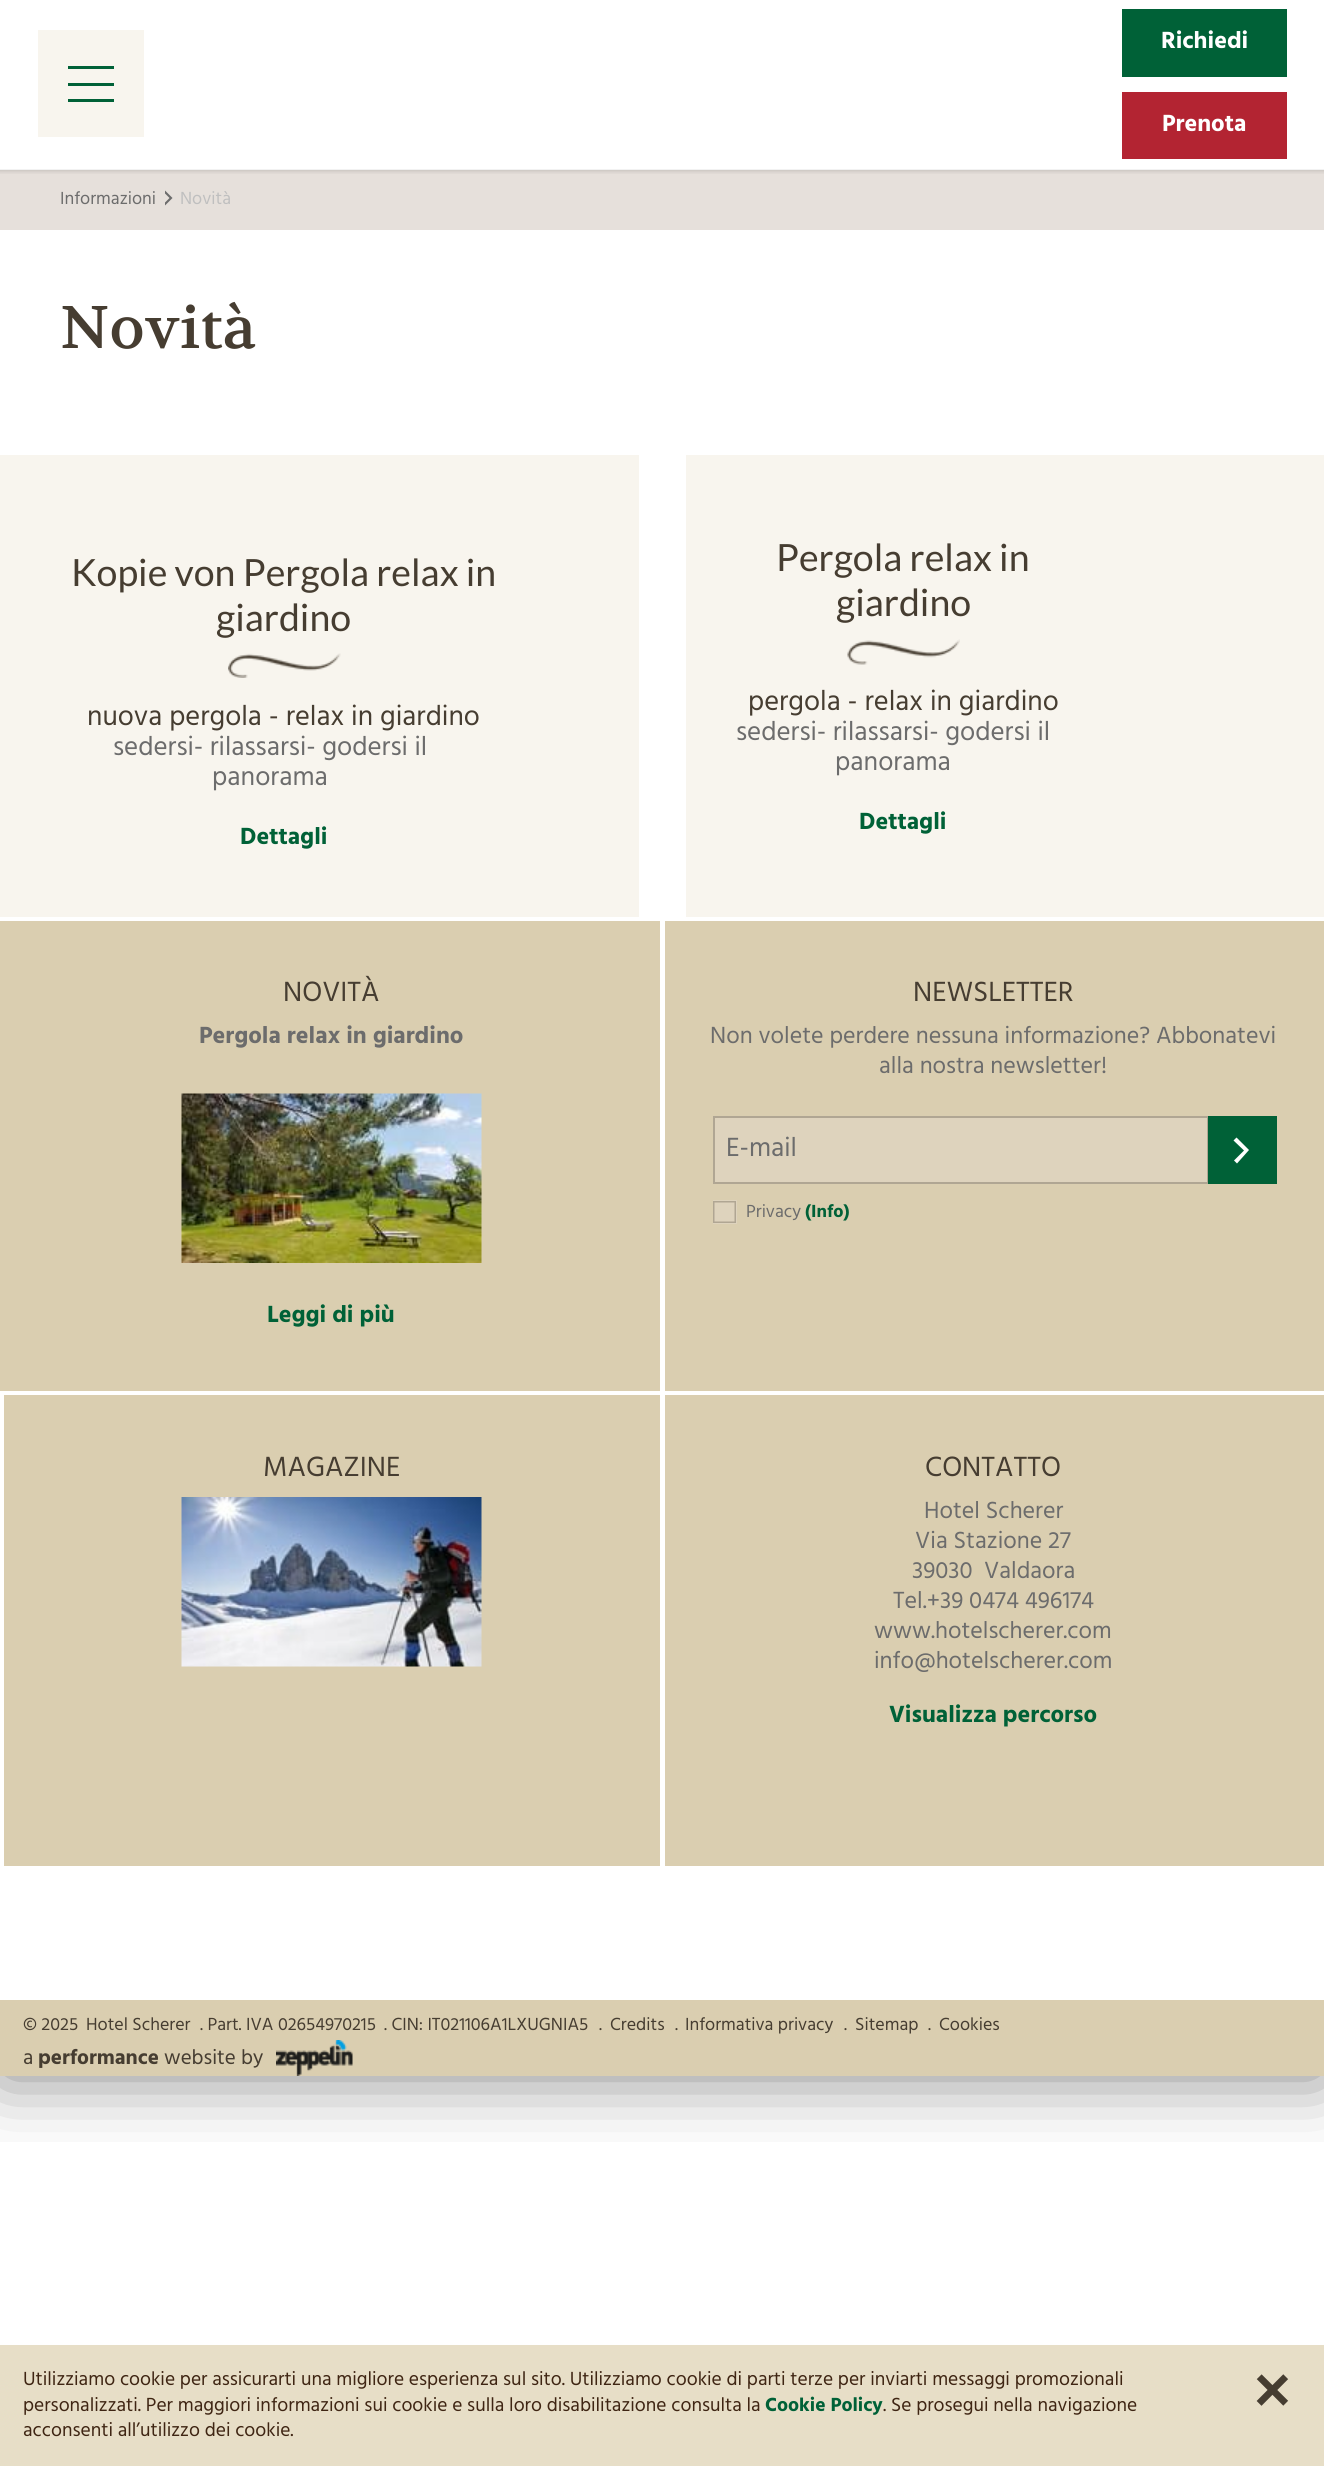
import math
import cairocffi as cairo

surface = cairo.ImageSurface(cairo.FORMAT_RGB24, 1324, 2466)
cr = cairo.Context(surface)
options = cairo.FontOptions()
options.set_hint_metrics(cairo.HINT_METRICS_OFF)
options.set_hint_style(cairo.HINT_STYLE_NONE)
cr.set_font_options(options)
cr.set_miter_limit(4)


def use_color(code):
    cr.set_source_rgb(*(v / 255 for v in bytes.fromhex(code[-6:])))


def round_rect(x, y, w, h, r):
    cr.new_sub_path()
    for i, (u, v) in enumerate([(x + w - r, y + h - r), (x + r, y + h - r), (x + r, y + r), (x + w - r, y + r)]):
        cr.arc(u, v, r, i * math.pi / 2, (i + 1) * math.pi / 2)
    cr.close_path()


def shadow(x, y, w, h, r, blur, alpha):
    cr.push_group_with_content(cairo.CONTENT_ALPHA)
    cr.set_operator(cairo.OPERATOR_SOURCE)
    for i in range(15, -16, -2):
        e = blur * i / 6
        if min(w, h) + 2 * e > 0:
            cr.set_source_rgba(0, 0, 0, alpha * math.erfc((i - 1) / 8.5) / 2)
            round_rect(x - e, y - e, w + 2 * e, h + 2 * e, max(0, min(r + e + blur * .6, min(w, h) / 2 + e)))
            cr.fill()
    cr.mask(cr.pop_group())


def picture(path, x, y, w, h):
    cr.save()
    cr.set_source_surface(cairo.ImageSurface.create_from_png(path), x, y)
    cr.rectangle(x, y, w, h)
    cr.fill()
    cr.restore()


use_color("#ffffff")
cr.paint()
cr.save()
cr.rectangle(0, 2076, 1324, 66)
cr.clip()
use_color("#000000")
shadow(0, 0, 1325, 2076, 0, 37.5, 0.5)
cr.restore()
use_color("#f8f5ee")
cr.rectangle(38, 30, 106, 107)
cr.fill()
use_color("#006137")
cr.rectangle(68, 66, 46, 3)
cr.fill()
cr.rectangle(68, 83, 46, 3)
cr.fill()
cr.rectangle(68, 99, 46, 3)
cr.fill()
cr.rectangle(1122, 9, 165, 68)
cr.fill()
cr.select_font_face("Hind", cairo.FONT_SLANT_NORMAL, cairo.FONT_WEIGHT_BOLD)
cr.set_font_size(24)
use_color("#ffffff")
cr.move_to(1161, 48)
cr.show_text("Richiedi")
use_color("#b32432")
cr.rectangle(1122, 92, 165, 67)
cr.fill()
use_color("#ffffff")
cr.move_to(1162, 131)
cr.show_text("Prenota")
use_color("#e6e0db")
cr.rectangle(0, 170, 1324, 60)
cr.fill()
picture("img1.png", 0, 169, 1324, 5)
cr.select_font_face("Hind")
cr.set_font_size(18)
use_color("#6c6c6c")
cr.move_to(60, 204)
cr.show_text("Informazioni")
cr.new_path()
cr.move_to(165, 205.5)
cr.line_to(165, 190.5)
cr.line_to(172.5, 198)
cr.close_path()
cr.fill()
use_color("#e6e0db")
cr.new_path()
cr.move_to(165, 202.5)
cr.line_to(165, 193.5)
cr.line_to(169.5, 198)
cr.close_path()
cr.fill()
use_color("#bfbfbf")
cr.move_to(180, 204)
cr.show_text("Novità")
cr.select_font_face("Volkhov")
cr.set_font_size(60)
use_color("#463d31")
cr.move_to(60, 348)
cr.show_text("Novità")
use_color("#f8f5ee")
cr.rectangle(0, 455, 639, 462)
cr.fill()
cr.select_font_face("Lato")
cr.set_font_size(37.5)
use_color("#463d31")
cr.move_to(71, 586)
cr.show_text("Kopie von Pergola relax in")
cr.move_to(216, 631)
cr.show_text("giardino")
picture("img2.png", 228, 653, 113, 25)
cr.select_font_face("Hind")
cr.set_font_size(28.5)
cr.move_to(87, 725)
cr.show_text("nuova pergola - relax in giardino")
cr.set_font_size(27)
use_color("#6c6c6c")
cr.move_to(113, 755)
cr.show_text("sedersi- rilassarsi- godersi il")
cr.move_to(212, 785)
cr.show_text("panorama")
cr.select_font_face("Hind", cairo.FONT_SLANT_NORMAL, cairo.FONT_WEIGHT_BOLD)
cr.set_font_size(24)
use_color("#006137")
cr.move_to(240, 844)
cr.show_text("Dettagli")
use_color("#f8f5ee")
cr.rectangle(686, 455, 638, 462)
cr.fill()
cr.select_font_face("Lato")
cr.set_font_size(37.5)
use_color("#463d31")
cr.move_to(776, 571)
cr.show_text("Pergola relax in")
cr.move_to(836, 616)
cr.show_text("giardino")
picture("img3.png", 847, 639, 113, 26)
cr.select_font_face("Hind")
cr.set_font_size(28.5)
cr.move_to(748, 710)
cr.show_text("pergola - relax in giardino")
cr.set_font_size(27)
use_color("#6c6c6c")
cr.move_to(736, 740)
cr.show_text("sedersi- rilassarsi- godersi il")
cr.move_to(835, 770)
cr.show_text("panorama")
cr.select_font_face("Hind", cairo.FONT_SLANT_NORMAL, cairo.FONT_WEIGHT_BOLD)
cr.set_font_size(24)
use_color("#006137")
cr.move_to(859, 829)
cr.show_text("Dettagli")
use_color("#daceb0")
cr.rectangle(0, 921, 660, 470)
cr.fill()
cr.select_font_face("Hind")
cr.set_font_size(28.5)
use_color("#463d31")
cr.move_to(283, 1001)
cr.show_text("NOVITÀ")
cr.select_font_face("Hind", cairo.FONT_SLANT_NORMAL, cairo.FONT_WEIGHT_BOLD)
cr.set_font_size(24)
use_color("#6c6c6c")
cr.move_to(199, 1043)
cr.show_text("Pergola relax in giardino")
picture("img4.png", 181, 1093, 301, 170)
use_color("#006137")
cr.move_to(267, 1322)
cr.show_text("Leggi di più")
use_color("#daceb0")
cr.rectangle(665, 921, 659, 470)
cr.fill()
cr.select_font_face("Hind")
cr.set_font_size(28.5)
use_color("#463d31")
cr.move_to(913, 1001)
cr.show_text("NEWSLETTER")
cr.set_font_size(24)
use_color("#6c6c6c")
cr.move_to(710, 1043)
cr.show_text("Non volete perdere nessuna informazione? Abbonatevi")
cr.move_to(879, 1073)
cr.show_text("alla nostra newsletter!")
use_color("#ded3bd")
cr.rectangle(714, 1117, 494, 66)
cr.fill_preserve()
use_color("#b0a693")
cr.stroke()
cr.set_font_size(27)
use_color("#6c6c6c")
cr.move_to(726, 1156)
cr.show_text("E-mail")
use_color("#006137")
cr.rectangle(1208, 1116, 69, 68)
cr.fill()
use_color("#ffffff")
cr.new_path()
cr.move_to(1234, 1160.5)
cr.line_to(1237, 1163.5)
cr.line_to(1249, 1150)
cr.line_to(1236.5, 1137.5)
cr.line_to(1233.5, 1140.5)
cr.line_to(1244, 1150.5)
cr.close_path()
cr.fill()
use_color("#ded3bd")
cr.rectangle(713, 1200, 24, 24)
cr.fill()
cr.rectangle(713.75, 1201.75, 21.5, 20.5)
use_color("#b0a693")
cr.set_line_width(1.5)
cr.stroke()
cr.set_font_size(18)
use_color("#6c6c6c")
cr.move_to(746, 1217)
cr.show_text("Privacy")
cr.select_font_face("Hind", cairo.FONT_SLANT_NORMAL, cairo.FONT_WEIGHT_BOLD)
use_color("#006137")
cr.move_to(805, 1217)
cr.show_text("(Info)")
use_color("#daceb0")
cr.rectangle(4, 1395, 656, 471)
cr.fill()
cr.select_font_face("Hind")
cr.set_font_size(28.5)
use_color("#463d31")
cr.move_to(263, 1476)
cr.show_text("MAGAZINE")
picture("img5.png", 181, 1497, 301, 170)
use_color("#daceb0")
cr.rectangle(665, 1395, 659, 471)
cr.fill()
use_color("#463d31")
cr.move_to(925, 1476)
cr.show_text("CONTATTO")
cr.set_font_size(24)
use_color("#6c6c6c")
cr.move_to(924, 1518)
cr.show_text("Hotel Scherer")
cr.move_to(915, 1548)
cr.show_text("Via Stazione 27")
cr.move_to(912, 1578)
cr.show_text("39030")
cr.move_to(984, 1578)
cr.show_text("Valdaora")
cr.move_to(893, 1608)
cr.show_text("Tel.+39 0474 496174")
cr.move_to(874, 1638)
cr.show_text("www.hotelscherer.com")
cr.move_to(874, 1668)
cr.show_text("info@hotelscherer.com")
cr.select_font_face("Hind", cairo.FONT_SLANT_NORMAL, cairo.FONT_WEIGHT_BOLD)
use_color("#006137")
cr.move_to(889, 1722)
cr.show_text("Visualizza percorso")
use_color("#daceb0")
cr.rectangle(0, 2000, 1324, 76)
cr.fill()
cr.select_font_face("Hind")
cr.set_font_size(18)
use_color("#463d31")
cr.move_to(23, 2030)
cr.show_text("© 2025")
cr.move_to(86, 2030)
cr.show_text("Hotel Scherer")
cr.move_to(200, 2030)
cr.show_text(". Part. IVA 02654970215")
cr.move_to(384, 2030)
cr.show_text(". CIN: IT021106A1LXUGNIA5")
cr.move_to(599, 2030)
cr.show_text(".")
cr.move_to(610, 2030)
cr.show_text("Credits")
cr.move_to(675, 2030)
cr.show_text(".")
cr.move_to(685, 2030)
cr.show_text("Informativa privacy")
cr.move_to(844, 2030)
cr.show_text(".")
cr.move_to(855, 2030)
cr.show_text("Sitemap")
cr.move_to(928, 2030)
cr.show_text(".")
cr.move_to(939, 2030)
cr.show_text("Cookies")
cr.set_font_size(21)
cr.move_to(23, 2064)
cr.show_text("a")
cr.select_font_face("Hind", cairo.FONT_SLANT_NORMAL, cairo.FONT_WEIGHT_BOLD)
cr.move_to(38, 2064)
cr.show_text("performance")
cr.select_font_face("Hind")
cr.move_to(164, 2064)
cr.show_text("website by")
picture("img6.png", 276, 2040, 77, 36)
use_color("#e7dec7")
cr.rectangle(0, 2345, 1324, 121)
cr.fill()
cr.set_font_size(19.5)
use_color("#3f2513")
cr.move_to(23, 2385)
cr.show_text("Utilizziamo cookie per assicurarti una migliore esperienza sul sito. Utilizziamo cookie di parti terze per inviarti messaggi promozionali")
cr.move_to(23, 2411)
cr.show_text("personalizzati. Per maggiori informazioni sui cookie e sulla loro disabilitazione consulta la")
cr.select_font_face("Hind", cairo.FONT_SLANT_NORMAL, cairo.FONT_WEIGHT_BOLD)
use_color("#006137")
cr.move_to(765, 2411)
cr.show_text("Cookie Policy")
cr.select_font_face("Hind")
use_color("#3f2513")
cr.move_to(883, 2411)
cr.show_text(". Se prosegui nella navigazione")
cr.move_to(23, 2436)
cr.show_text("acconsenti all’utilizzo dei cookie.")
cr.select_font_face("Liberation Sans", cairo.FONT_SLANT_NORMAL, cairo.FONT_WEIGHT_BOLD)
cr.set_font_size(63)
use_color("#463d31")
cr.move_to(1254, 2411)
cr.show_text("×")
surface.write_to_png("result.png")
